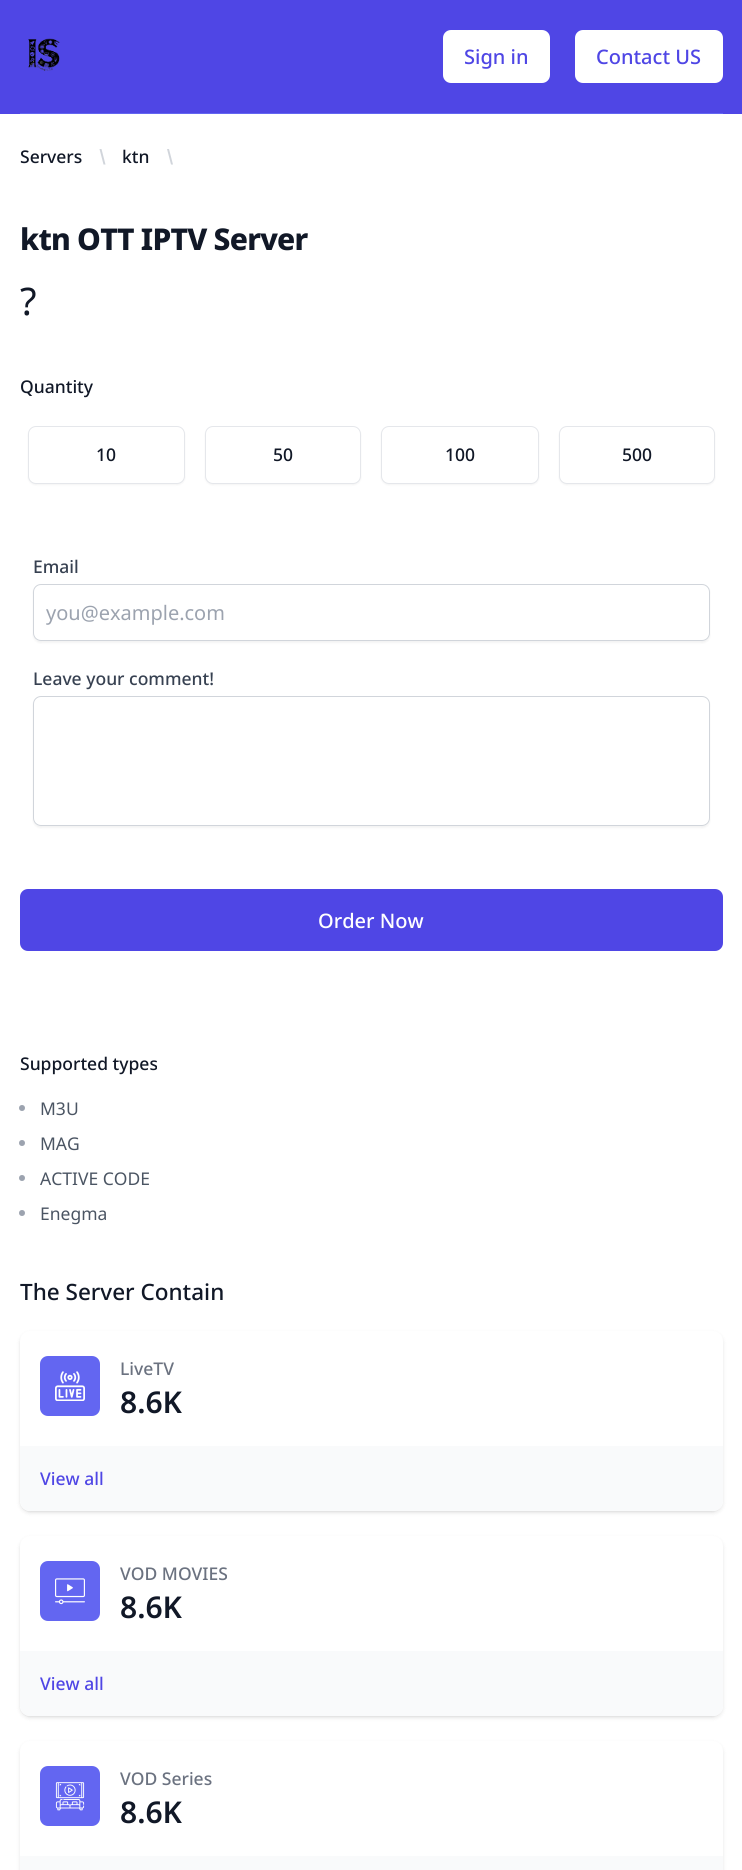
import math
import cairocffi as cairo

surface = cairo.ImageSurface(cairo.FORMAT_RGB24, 742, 1870)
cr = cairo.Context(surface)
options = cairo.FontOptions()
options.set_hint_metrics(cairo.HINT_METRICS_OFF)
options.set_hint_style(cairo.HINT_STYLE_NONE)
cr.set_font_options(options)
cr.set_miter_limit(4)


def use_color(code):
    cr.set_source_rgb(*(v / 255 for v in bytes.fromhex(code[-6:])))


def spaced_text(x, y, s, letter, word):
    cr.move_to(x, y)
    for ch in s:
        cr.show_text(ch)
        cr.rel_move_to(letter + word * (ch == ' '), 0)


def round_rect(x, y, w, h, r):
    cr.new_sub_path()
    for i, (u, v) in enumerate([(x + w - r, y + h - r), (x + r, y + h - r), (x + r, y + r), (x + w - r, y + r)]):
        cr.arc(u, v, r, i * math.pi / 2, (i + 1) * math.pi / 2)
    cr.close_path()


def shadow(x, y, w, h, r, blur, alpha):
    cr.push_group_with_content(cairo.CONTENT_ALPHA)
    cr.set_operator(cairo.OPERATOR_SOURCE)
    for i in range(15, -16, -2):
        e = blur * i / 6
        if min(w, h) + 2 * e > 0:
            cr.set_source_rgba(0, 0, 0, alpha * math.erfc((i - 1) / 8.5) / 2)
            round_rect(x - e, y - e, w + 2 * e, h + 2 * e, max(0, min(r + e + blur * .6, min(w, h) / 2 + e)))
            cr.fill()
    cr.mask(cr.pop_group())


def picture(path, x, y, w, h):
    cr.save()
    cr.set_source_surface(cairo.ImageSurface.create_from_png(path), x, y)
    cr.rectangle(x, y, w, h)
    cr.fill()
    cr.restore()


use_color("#ffffff")
cr.paint()
use_color("#4f46e5")
cr.rectangle(0, 0, 742, 114)
cr.fill()
use_color("#6366f1")
cr.rectangle(20, 113, 703, 1)
cr.fill()
picture("img1.png", 28, 38, 32, 33)
use_color("#ffffff")
round_rect(443, 30, 107, 53, 8)
cr.fill()
cr.select_font_face("Noto Sans Medium")
cr.set_font_size(20)
use_color("#4f46e5")
cr.move_to(464, 64)
cr.show_text("Sign in")
use_color("#ffffff")
round_rect(575, 30, 148, 53, 8)
cr.fill()
use_color("#4f46e5")
cr.move_to(596, 64)
cr.show_text("Contact US")
cr.set_font_size(17.5)
use_color("#111827")
cr.move_to(20, 163)
cr.show_text("Servers")
use_color("#d1d5db")
cr.new_path()
cr.move_to(99.5, 149)
cr.line_to(103.5, 164.5)
cr.line_to(105.5, 164.5)
cr.line_to(101.5, 149)
cr.close_path()
cr.fill()
use_color("#111827")
cr.move_to(122, 163)
cr.show_text("ktn")
use_color("#d1d5db")
cr.new_path()
cr.move_to(167, 149)
cr.line_to(171, 164.5)
cr.line_to(173, 164.5)
cr.line_to(169, 149)
cr.close_path()
cr.fill()
cr.select_font_face("Noto Sans ExtraBold")
cr.set_font_size(30)
use_color("#111827")
spaced_text(20, 250, "ktn OTT IPTV Server", -0.75, 0)
cr.select_font_face("Noto Sans")
cr.set_font_size(38)
cr.move_to(20, 315)
cr.show_text("?")
cr.select_font_face("Noto Sans Medium")
cr.set_font_size(17.5)
cr.move_to(20, 393)
cr.show_text("Quantity")
use_color("#000000")
shadow(28, 428, 157, 57, 8, 1, 0.05)
use_color("#ffffff")
round_rect(28.5, 426.5, 156, 57, 7.5)
cr.fill_preserve()
use_color("#e5e7eb")
cr.set_line_width(1)
cr.stroke()
use_color("#111827")
cr.move_to(96, 461)
cr.show_text("10")
use_color("#000000")
shadow(205, 428, 156, 57, 8, 1, 0.05)
use_color("#ffffff")
round_rect(205.5, 426.5, 155, 57, 7.5)
cr.fill_preserve()
use_color("#e5e7eb")
cr.stroke()
use_color("#111827")
cr.move_to(273, 461)
cr.show_text("50")
use_color("#000000")
shadow(381, 428, 158, 57, 8, 1, 0.05)
use_color("#ffffff")
round_rect(381.5, 426.5, 157, 57, 7.5)
cr.fill_preserve()
use_color("#e5e7eb")
cr.stroke()
use_color("#111827")
cr.move_to(445, 461)
cr.show_text("100")
use_color("#000000")
shadow(559, 428, 156, 57, 8, 1, 0.05)
use_color("#ffffff")
round_rect(559.5, 426.5, 155, 57, 7.5)
cr.fill_preserve()
use_color("#e5e7eb")
cr.stroke()
use_color("#111827")
cr.move_to(622, 461)
cr.show_text("500")
use_color("#374151")
cr.move_to(33, 573)
cr.show_text("Email")
cr.save()
cr.set_fill_rule(cairo.FILL_RULE_EVEN_ODD)
cr.new_path()
cr.move_to(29, 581)
cr.line_to(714, 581)
cr.line_to(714, 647)
cr.line_to(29, 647)
cr.close_path()
cr.move_to(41, 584)
cr.line_to(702, 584)
cr.curve_to(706.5, 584, 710, 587.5, 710, 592)
cr.line_to(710, 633)
cr.curve_to(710, 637.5, 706.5, 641, 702, 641)
cr.line_to(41, 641)
cr.curve_to(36.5, 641, 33, 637.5, 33, 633)
cr.line_to(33, 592)
cr.curve_to(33, 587.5, 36.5, 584, 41, 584)
cr.close_path()
cr.clip()
use_color("#000000")
shadow(33, 585, 677, 58, 8, 1, 0.05)
cr.restore()
round_rect(33.5, 584.5, 676, 56, 7.5)
use_color("#d1d5db")
cr.stroke()
cr.select_font_face("Noto Sans")
cr.set_font_size(20)
use_color("#9ca3af")
cr.move_to(46, 620)
cr.show_text("you@example.com")
cr.select_font_face("Noto Sans Medium")
cr.set_font_size(17.5)
use_color("#374151")
cr.move_to(33, 685)
cr.show_text("Leave your comment!")
cr.save()
cr.set_fill_rule(cairo.FILL_RULE_EVEN_ODD)
cr.new_path()
cr.move_to(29, 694)
cr.line_to(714, 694)
cr.line_to(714, 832)
cr.line_to(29, 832)
cr.close_path()
cr.move_to(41, 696)
cr.line_to(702, 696)
cr.curve_to(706.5, 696, 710, 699.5, 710, 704)
cr.line_to(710, 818)
cr.curve_to(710, 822.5, 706.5, 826, 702, 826)
cr.line_to(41, 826)
cr.curve_to(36.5, 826, 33, 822.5, 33, 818)
cr.line_to(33, 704)
cr.curve_to(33, 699.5, 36.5, 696, 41, 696)
cr.close_path()
cr.clip()
use_color("#000000")
shadow(33, 698, 677, 130, 8, 1, 0.05)
cr.restore()
round_rect(33.5, 696.5, 676, 129, 7.5)
use_color("#d1d5db")
cr.stroke()
use_color("#4f46e5")
round_rect(20, 889, 703, 62, 8)
cr.fill()
cr.set_font_size(20)
use_color("#ffffff")
cr.move_to(318, 928)
cr.show_text("Order Now")
cr.set_font_size(17.5)
use_color("#111827")
cr.move_to(20, 1070)
cr.show_text("Supported types")
use_color("#9ca3af")
cr.new_path()
cr.arc(22, 1108, 3, 0, 2 * math.pi)
cr.fill()
cr.select_font_face("Noto Sans")
use_color("#4b5563")
cr.move_to(40, 1115)
cr.show_text("M3U")
use_color("#9ca3af")
cr.new_path()
cr.arc(22, 1143, 3, 0, 2 * math.pi)
cr.fill()
use_color("#4b5563")
cr.move_to(40, 1150)
cr.show_text("MAG")
use_color("#9ca3af")
cr.new_path()
cr.arc(22, 1178, 3, 0, 2 * math.pi)
cr.fill()
use_color("#4b5563")
cr.move_to(40, 1185)
cr.show_text("ACTIVE CODE")
use_color("#9ca3af")
cr.new_path()
cr.arc(22, 1213, 3, 0, 2 * math.pi)
cr.fill()
use_color("#4b5563")
cr.move_to(40, 1220)
cr.show_text("Enegma")
cr.select_font_face("Noto Sans Medium")
cr.set_font_size(22.5)
use_color("#111827")
cr.move_to(20, 1300)
cr.show_text("The Server Contain")
use_color("#000000")
shadow(21, 1334, 700, 177, 9, 1, 0.1)
shadow(20, 1333, 703, 180, 10, 2, 0.1)
use_color("#ffffff")
round_rect(20, 1331, 703, 180, 10)
cr.fill()
use_color("#6366f1")
round_rect(40, 1356, 60, 60, 8)
cr.fill()
picture("img2.png", 55, 1371, 30, 30)
cr.set_font_size(17.5)
use_color("#6b7280")
cr.move_to(120, 1375)
cr.show_text("LiveTV")
cr.select_font_face("Noto Sans SemiBold")
cr.set_font_size(30)
use_color("#111827")
cr.move_to(120, 1413)
cr.show_text("8.6K")
use_color("#f9fafb")
cr.new_path()
cr.move_to(20, 1446)
cr.line_to(723, 1446)
cr.line_to(723, 1501)
cr.curve_to(723, 1506.5, 718.5, 1511, 713, 1511)
cr.line_to(30, 1511)
cr.curve_to(24.5, 1511, 20, 1506.5, 20, 1501)
cr.close_path()
cr.fill()
cr.select_font_face("Noto Sans Medium")
cr.set_font_size(17.5)
use_color("#4f46e5")
cr.move_to(40, 1485)
cr.show_text("View all")
use_color("#000000")
shadow(21, 1539, 700, 177, 9, 1, 0.1)
shadow(20, 1538, 703, 180, 10, 2, 0.1)
use_color("#ffffff")
round_rect(20, 1536, 703, 180, 10)
cr.fill()
use_color("#6366f1")
round_rect(40, 1561, 60, 60, 8)
cr.fill()
picture("img3.png", 55, 1578, 30, 27)
use_color("#6b7280")
cr.move_to(120, 1580)
cr.show_text("VOD MOVIES")
cr.select_font_face("Noto Sans SemiBold")
cr.set_font_size(30)
use_color("#111827")
cr.move_to(120, 1618)
cr.show_text("8.6K")
use_color("#f9fafb")
cr.new_path()
cr.move_to(20, 1651)
cr.line_to(723, 1651)
cr.line_to(723, 1706)
cr.curve_to(723, 1711.5, 718.5, 1716, 713, 1716)
cr.line_to(30, 1716)
cr.curve_to(24.5, 1716, 20, 1711.5, 20, 1706)
cr.close_path()
cr.fill()
cr.select_font_face("Noto Sans Medium")
cr.set_font_size(17.5)
use_color("#4f46e5")
cr.move_to(40, 1690)
cr.show_text("View all")
use_color("#000000")
shadow(20, 1743, 703, 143, 10, 2, 0.1)
use_color("#ffffff")
round_rect(20, 1741, 703, 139, 10)
cr.fill()
use_color("#6366f1")
round_rect(40, 1766, 60, 60, 8)
cr.fill()
picture("img4.png", 55, 1782, 30, 29)
use_color("#6b7280")
cr.move_to(120, 1785)
cr.show_text("VOD Series")
cr.select_font_face("Noto Sans SemiBold")
cr.set_font_size(30)
use_color("#111827")
cr.move_to(120, 1823)
cr.show_text("8.6K")
use_color("#f9fafb")
cr.rectangle(20, 1856, 703, 14)
cr.fill()
surface.write_to_png("result.png")
